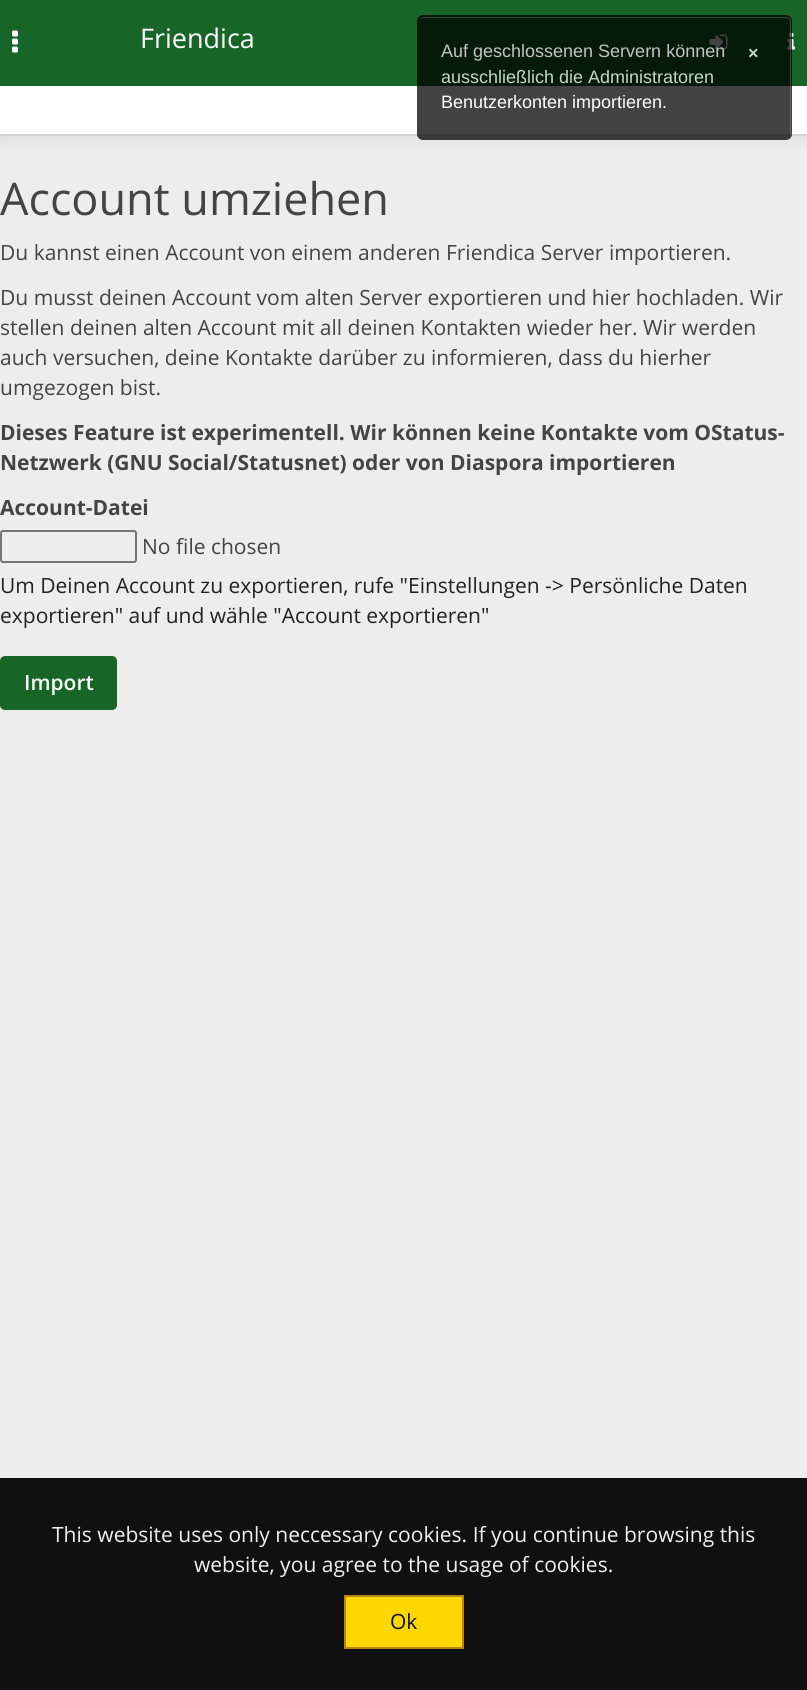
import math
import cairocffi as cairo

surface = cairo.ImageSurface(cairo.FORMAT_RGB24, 807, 1690)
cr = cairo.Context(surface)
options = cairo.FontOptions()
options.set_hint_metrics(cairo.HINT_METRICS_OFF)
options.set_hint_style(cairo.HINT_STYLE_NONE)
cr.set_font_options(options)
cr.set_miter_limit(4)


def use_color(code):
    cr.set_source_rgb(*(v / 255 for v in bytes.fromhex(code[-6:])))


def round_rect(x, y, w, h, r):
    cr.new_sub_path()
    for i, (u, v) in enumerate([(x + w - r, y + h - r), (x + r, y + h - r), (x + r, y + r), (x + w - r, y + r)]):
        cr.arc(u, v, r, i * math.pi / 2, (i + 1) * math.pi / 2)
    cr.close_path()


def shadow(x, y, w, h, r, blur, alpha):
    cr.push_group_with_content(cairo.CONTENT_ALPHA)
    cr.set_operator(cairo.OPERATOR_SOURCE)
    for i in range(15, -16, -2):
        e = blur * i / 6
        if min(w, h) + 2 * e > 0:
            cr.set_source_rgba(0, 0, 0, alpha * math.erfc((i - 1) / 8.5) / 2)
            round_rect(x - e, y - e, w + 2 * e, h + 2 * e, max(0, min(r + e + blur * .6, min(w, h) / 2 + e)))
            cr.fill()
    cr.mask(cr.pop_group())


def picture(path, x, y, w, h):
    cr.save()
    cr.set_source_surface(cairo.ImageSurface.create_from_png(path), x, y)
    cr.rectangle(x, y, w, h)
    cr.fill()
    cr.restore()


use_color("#ededed")
cr.paint()
use_color("#000000")
shadow(0, 77, 807, 60, 0, 7.5, 0.1)
use_color("#176628")
cr.rectangle(0, 0, 807, 86)
cr.fill()
picture("img1.png", 12, 30, 6, 23)
cr.select_font_face("Open Sans")
cr.set_font_size(27)
use_color("#ffffff")
cr.move_to(140, 48)
cr.show_text("Friendica")
picture("img2.png", 709, 34, 19, 16)
picture("img3.png", 787, 33, 8, 17)
cr.rectangle(0, 86, 807, 48)
cr.fill()
use_color("#d4d4d4")
cr.rectangle(0, 134, 807, 2)
cr.fill()
cr.set_source_rgba(0, 0, 0, 0.74)
round_rect(417, 15, 375, 125, 6)
cr.fill()
cr.set_source_rgba(1, 1, 1, 0.19)
cr.new_path()
cr.move_to(423, 18)
cr.line_to(786, 18)
cr.curve_to(788, 18, 790, 20, 790, 22)
cr.line_to(790, 136)
cr.curve_to(791, 135, 791, 134, 791, 133)
cr.line_to(791, 22)
cr.curve_to(791, 19, 789, 17, 786, 17)
cr.line_to(424, 17)
cr.curve_to(422, 17, 421, 18, 420, 19)
cr.close_path()
cr.fill()
cr.select_font_face("Liberation Sans")
cr.set_font_size(18)
use_color("#c0c5c1")
cr.move_to(441, 57)
cr.show_text("Auf geschlossenen Servern können")
use_color("#c4d8c8")
cr.move_to(441, 83)
cr.show_text("ausschließlich die Administratoren")
use_color("#ffffff")
cr.move_to(441, 108)
cr.show_text("Benutzerkonten importieren.")
cr.select_font_face("Liberation Sans", cairo.FONT_SLANT_NORMAL, cairo.FONT_WEIGHT_BOLD)
use_color("#c4d8c8")
cr.move_to(748, 59)
cr.show_text("×")
cr.select_font_face("Open Sans")
cr.set_font_size(45)
use_color("#444444")
cr.move_to(0, 215)
cr.show_text("Account umziehen")
cr.set_font_size(21)
cr.move_to(0, 260)
cr.show_text("Du kannst einen Account von einem anderen Friendica Server importieren.")
cr.move_to(0, 305)
cr.show_text("Du musst deinen Account vom alten Server exportieren und hier hochladen. Wir")
cr.move_to(0, 335)
cr.show_text("stellen deinen alten Account mit all deinen Kontakten wieder her. Wir werden")
cr.move_to(0, 365)
cr.show_text("auch versuchen, deine Kontakte darüber zu informieren, dass du hierher")
cr.move_to(0, 395)
cr.show_text("umgezogen bist.")
cr.select_font_face("Open Sans", cairo.FONT_SLANT_NORMAL, cairo.FONT_WEIGHT_BOLD)
cr.move_to(0, 440)
cr.show_text("Dieses Feature ist experimentell. Wir können keine Kontakte vom OStatus-")
cr.move_to(0, 470)
cr.show_text("Netzwerk (GNU Social/Statusnet) oder von Diaspora importieren")
cr.move_to(0, 515)
cr.show_text("Account-Datei")
round_rect(1, 531, 135, 31, 2)
use_color("#767676")
cr.stroke()
cr.select_font_face("Open Sans")
use_color("#444444")
cr.move_to(142, 554)
cr.show_text("No file chosen")
use_color("#222222")
cr.move_to(0, 593)
cr.show_text("Um Deinen Account zu exportieren, rufe \"Einstellungen -> Persönliche Daten")
cr.move_to(0, 623)
cr.show_text("exportieren\" auf und wähle \"Account exportieren\"")
use_color("#176628")
round_rect(0, 656, 117, 54, 5)
cr.fill()
cr.select_font_face("Open Sans SemiBold")
use_color("#ffffff")
cr.move_to(24, 690)
cr.show_text("Import")
use_color("#101010")
cr.rectangle(0, 1478, 807, 212)
cr.fill()
cr.select_font_face("Open Sans")
use_color("#f0f0f0")
cr.move_to(52, 1542)
cr.show_text("This website uses only neccessary cookies. If you continue browsing this")
cr.move_to(194, 1572)
cr.show_text("website, you agree to the usage of cookies.")
use_color("#ffd700")
cr.rectangle(345, 1596, 118, 52)
cr.fill_preserve()
use_color("#b8860b")
cr.stroke()
use_color("#101010")
cr.move_to(390, 1629)
cr.show_text("Ok")
surface.write_to_png("result.png")
